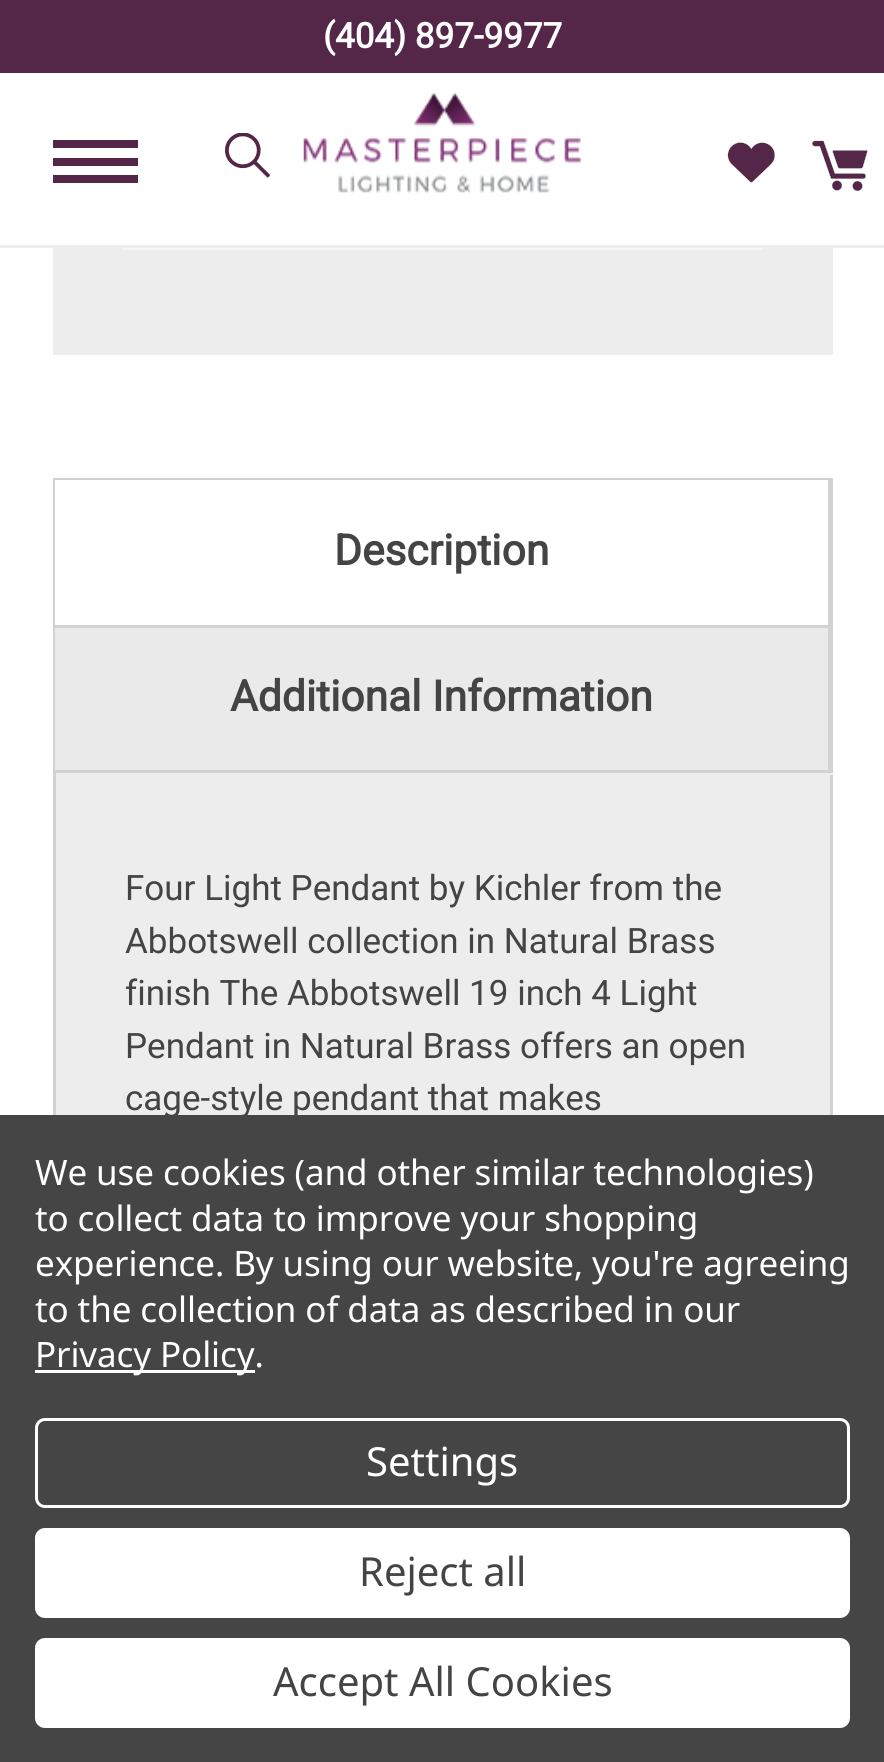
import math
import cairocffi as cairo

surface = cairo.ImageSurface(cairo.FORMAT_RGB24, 884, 1762)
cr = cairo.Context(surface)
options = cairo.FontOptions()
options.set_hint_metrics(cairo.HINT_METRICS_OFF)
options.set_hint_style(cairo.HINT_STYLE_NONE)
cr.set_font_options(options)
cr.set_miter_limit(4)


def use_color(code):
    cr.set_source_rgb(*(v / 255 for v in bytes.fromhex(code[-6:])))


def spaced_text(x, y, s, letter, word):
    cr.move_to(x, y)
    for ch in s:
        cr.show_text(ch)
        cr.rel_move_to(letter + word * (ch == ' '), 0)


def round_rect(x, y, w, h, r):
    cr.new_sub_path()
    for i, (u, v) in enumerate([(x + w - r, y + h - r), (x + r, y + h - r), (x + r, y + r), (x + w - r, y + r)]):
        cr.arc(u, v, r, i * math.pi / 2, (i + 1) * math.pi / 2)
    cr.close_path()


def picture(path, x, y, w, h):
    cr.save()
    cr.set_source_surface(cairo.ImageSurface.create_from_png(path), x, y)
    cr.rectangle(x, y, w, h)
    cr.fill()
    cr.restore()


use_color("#ffffff")
cr.paint()
use_color("#ededed")
cr.rectangle(53, 248, 780, 107)
cr.fill()
cr.rectangle(124.5, 106.5, 637, 142)
use_color("#f6f6f6")
cr.set_line_width(3)
cr.stroke()
use_color("#ffffff")
cr.rectangle(123, 105, 640, 140)
cr.fill()
use_color("#ededed")
cr.rectangle(0, 245, 884, 3)
cr.fill()
use_color("#542647")
cr.rectangle(0, 0, 884, 73)
cr.fill()
cr.select_font_face("Roboto", cairo.FONT_SLANT_NORMAL, cairo.FONT_WEIGHT_BOLD)
cr.set_font_size(35)
use_color("#ffffff")
cr.move_to(323, 48)
cr.show_text("(404) 897-9977")
use_color("#542647")
cr.rectangle(53, 158, 85, 8)
cr.fill()
cr.rectangle(53, 140, 85, 8)
cr.fill()
cr.rectangle(53, 175, 85, 8)
cr.fill()
picture("img1.png", 225, 133, 45, 45)
picture("img2.png", 303, 93, 278, 100)
picture("img3.png", 727, 142, 48, 41)
picture("img4.png", 812, 140, 56, 51)
use_color("#d2d2d2")
cr.rectangle(53, 478, 780, 2)
cr.fill()
cr.rectangle(830, 478, 3, 637)
cr.fill()
use_color("#ededed")
cr.rectangle(53, 773, 780, 2)
cr.fill()
use_color("#d2d2d2")
cr.rectangle(53, 478, 3, 637)
cr.fill()
use_color("#ffffff")
cr.rectangle(55, 480, 1, 145)
cr.fill()
use_color("#d2d2d2")
cr.rectangle(828, 480, 2, 293)
cr.fill()
cr.rectangle(55, 625, 775, 3)
cr.fill()
cr.set_font_size(42.5)
use_color("#444444")
cr.move_to(334, 565)
cr.show_text("Description")
use_color("#eaeaea")
cr.rectangle(55, 628, 773, 142)
cr.fill()
use_color("#d2d2d2")
cr.rectangle(55, 770, 775, 3)
cr.fill()
use_color("#444444")
cr.move_to(230, 711)
cr.show_text("Additional Information")
use_color("#ededed")
cr.rectangle(56, 775, 774, 340)
cr.fill()
cr.select_font_face("Roboto")
cr.set_font_size(35)
use_color("#444444")
cr.move_to(125, 900)
cr.show_text("Four Light Pendant by Kichler from the")
cr.move_to(125, 953)
cr.show_text("Abbotswell collection in Natural Brass")
cr.move_to(125, 1005)
cr.show_text("finish The Abbotswell 19 inch 4 Light")
cr.move_to(125, 1058)
cr.show_text("Pendant in Natural Brass offers an open")
cr.move_to(125, 1110)
cr.show_text("cage-style pendant that makes")
use_color("#454545")
cr.rectangle(0, 1115, 884, 647)
cr.fill()
cr.select_font_face("Noto Sans")
use_color("#ffffff")
spaced_text(35, 1185, "We use cookies (and other similar technologies)", -0.1, 0)
spaced_text(35, 1231, "to collect data to improve your shopping", -0.1, 0)
spaced_text(35, 1276, "experience. By using our website, you're agreeing", -0.1, 0)
spaced_text(35, 1322, "to the collection of data as described in our", -0.1, 0)
cr.rectangle(35, 1370, 220, 3)
cr.fill()
spaced_text(35, 1367, "Privacy Policy.", -0.1, 0)
round_rect(36.5, 1419.5, 812, 87, 8.5)
cr.stroke()
cr.set_font_size(40)
cr.move_to(366, 1476)
cr.show_text("Settings")
round_rect(35, 1528, 815, 90, 10)
cr.fill()
use_color("#444444")
cr.move_to(359, 1586)
cr.show_text("Reject all")
use_color("#ffffff")
round_rect(35, 1638, 815, 90, 10)
cr.fill()
use_color("#444444")
cr.move_to(273, 1696)
cr.show_text("Accept All Cookies")
surface.write_to_png("result.png")
